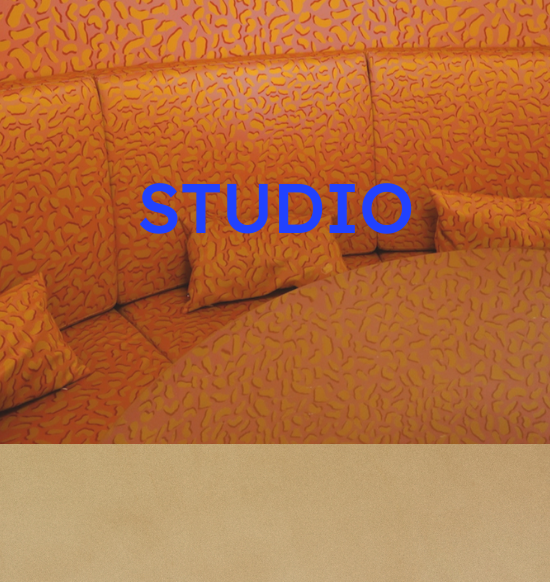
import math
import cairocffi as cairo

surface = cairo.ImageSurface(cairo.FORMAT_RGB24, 550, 582)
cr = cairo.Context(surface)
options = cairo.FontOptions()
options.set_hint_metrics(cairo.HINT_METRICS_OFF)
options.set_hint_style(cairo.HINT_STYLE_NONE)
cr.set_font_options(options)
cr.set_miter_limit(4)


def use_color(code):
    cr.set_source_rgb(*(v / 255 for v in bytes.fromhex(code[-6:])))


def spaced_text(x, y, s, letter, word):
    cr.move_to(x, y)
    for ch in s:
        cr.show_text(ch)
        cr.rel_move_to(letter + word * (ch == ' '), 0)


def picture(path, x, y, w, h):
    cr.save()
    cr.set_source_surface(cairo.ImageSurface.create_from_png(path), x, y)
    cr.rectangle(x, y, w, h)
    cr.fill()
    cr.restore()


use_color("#ffffff")
cr.paint()
picture("img1.png", 0, 0, 550, 444)
cr.select_font_face("Lexend Medium")
cr.set_font_size(70)
use_color("#2142fe")
spaced_text(137, 233, "STUDIO", -1, 0)
picture("img2.png", 0, 444, 550, 138)
surface.write_to_png("result.png")
